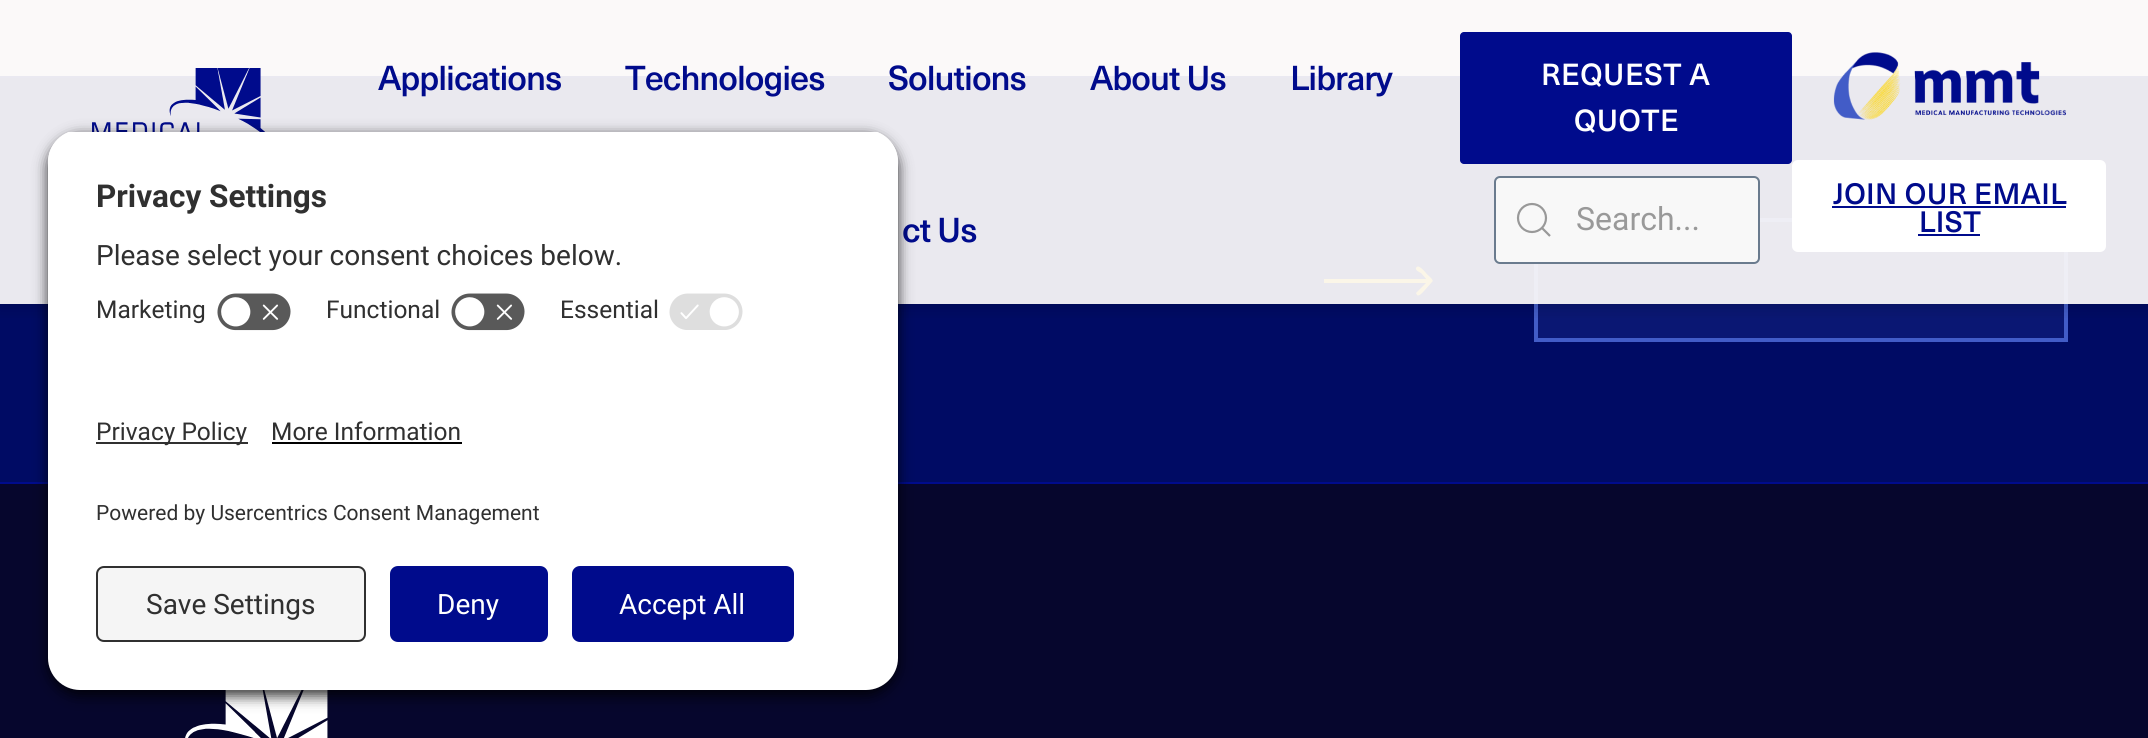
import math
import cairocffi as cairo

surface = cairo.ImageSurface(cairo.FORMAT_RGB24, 2148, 738)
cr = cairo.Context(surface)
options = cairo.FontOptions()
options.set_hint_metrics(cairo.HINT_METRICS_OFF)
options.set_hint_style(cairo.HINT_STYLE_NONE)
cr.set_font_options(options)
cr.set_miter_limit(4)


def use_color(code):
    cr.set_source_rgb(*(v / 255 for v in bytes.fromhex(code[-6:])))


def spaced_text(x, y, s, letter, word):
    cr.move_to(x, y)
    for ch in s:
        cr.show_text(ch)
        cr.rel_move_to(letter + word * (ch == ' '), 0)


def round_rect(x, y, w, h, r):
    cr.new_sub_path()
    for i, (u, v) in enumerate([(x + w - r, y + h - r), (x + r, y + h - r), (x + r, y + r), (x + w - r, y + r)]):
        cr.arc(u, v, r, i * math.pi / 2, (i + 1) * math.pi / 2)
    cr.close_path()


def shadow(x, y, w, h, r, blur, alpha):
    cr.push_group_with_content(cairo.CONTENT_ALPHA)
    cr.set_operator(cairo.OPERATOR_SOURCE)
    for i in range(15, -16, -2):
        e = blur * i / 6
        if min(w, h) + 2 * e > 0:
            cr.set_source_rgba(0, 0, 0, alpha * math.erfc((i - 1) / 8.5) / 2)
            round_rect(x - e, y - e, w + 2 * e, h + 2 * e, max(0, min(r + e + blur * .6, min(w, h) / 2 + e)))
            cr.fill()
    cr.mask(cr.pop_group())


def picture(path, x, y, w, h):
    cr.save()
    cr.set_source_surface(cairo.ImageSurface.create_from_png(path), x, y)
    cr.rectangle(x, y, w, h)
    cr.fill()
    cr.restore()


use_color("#ffffff")
cr.paint()
use_color("#000b64")
cr.rectangle(0, 78, 2148, 404)
cr.fill()
use_color("#000b8c")
cr.rectangle(0, 76, 2148, 2)
cr.fill()
use_color("#ffd600")
cr.new_path()
cr.move_to(1432, 282)
cr.curve_to(1435, 280, 1427, 275, 1426, 273)
cr.curve_to(1425, 272, 1418, 263, 1416, 268)
cr.curve_to(1415, 270, 1419, 272, 1421, 273)
cr.line_to(1428, 281)
cr.line_to(1416, 293)
cr.line_to(1417, 295)
cr.curve_to(1419, 297, 1423, 292, 1424, 291)
cr.close_path()
cr.move_to(1324, 283)
cr.line_to(1431, 283)
cr.line_to(1431, 279)
cr.line_to(1324, 279)
cr.close_path()
cr.fill()
use_color("#0a1773")
cr.rectangle(1536, 220, 530, 120)
cr.fill_preserve()
use_color("#425cc7")
cr.set_line_width(4)
cr.stroke()
cr.save()
cr.rectangle(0, 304, 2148, 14)
cr.clip()
use_color("#000000")
shadow(0, 0, 2148, 304, 0, 10, 0.23)
cr.restore()
cr.set_source_rgba(0.984, 0.976, 0.976, 0.93)
cr.rectangle(0, 0, 2148, 304)
cr.fill()
picture("img1.png", 92, 68, 173, 64)
cr.select_font_face("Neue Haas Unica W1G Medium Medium")
cr.set_font_size(34)
use_color("#000b8c")
spaced_text(378, 90, "Applications", -1, 0)
spaced_text(625, 90, "Technologies", -1, 0)
spaced_text(888, 90, "Solutions", -1, 0)
spaced_text(1090, 90, "About Us", -1, 0)
spaced_text(1290, 90, "Library", -1, 0)
spaced_text(902, 242, "ct Us", -1, 0)
round_rect(1460, 32, 332, 132, 4)
cr.fill()
cr.set_font_size(30)
use_color("#ffffff")
spaced_text(1541, 85, "REQUEST A", 0.5, 0)
spaced_text(1574, 131, "QUOTE", 0.5, 0)
use_color("#f8f8f8")
round_rect(1495, 177, 264, 86, 5)
cr.fill_preserve()
use_color("#6a7b8e")
cr.set_line_width(2)
cr.stroke()
cr.arc(1532, 218, 14, 0, 2 * math.pi)
use_color("#999999")
cr.set_line_width(2.2)
cr.stroke()
cr.new_path()
cr.move_to(1542, 228)
cr.line_to(1550, 236)
cr.close_path()
cr.stroke()
cr.select_font_face("Roboto")
cr.set_font_size(32)
cr.move_to(1576, 230)
cr.show_text("Search...")
picture("img2.png", 1833, 52, 233, 68)
use_color("#ffffff")
round_rect(1792, 160, 314, 92, 6)
cr.fill()
cr.select_font_face("Neue Haas Unica W1G Medium Medium")
cr.set_font_size(29)
use_color("#000b8c")
spaced_text(1833, 204, "JOIN OUR EMAIL", 0.4, 0)
cr.rectangle(1832, 206, 234, 2)
cr.fill()
spaced_text(1919, 232, "LIST", 0.4, 0)
cr.rectangle(1918, 234, 62, 2)
cr.fill()
cr.rectangle(0, 482, 2148, 2)
cr.fill()
use_color("#06062d")
cr.rectangle(0, 484, 2148, 254)
cr.fill()
picture("img3.png", 185, 690, 143, 48)
use_color("#000000")
shadow(48, 136, 850, 560, 32, 7, 0.8)
cr.save()
cr.new_path()
cr.move_to(80, 130)
cr.line_to(866, 130)
cr.curve_to(883.5, 130, 898, 144.5, 898, 162)
cr.line_to(898, 362)
cr.line_to(48, 362)
cr.line_to(48, 162)
cr.curve_to(48, 144.5, 62.5, 130, 80, 130)
cr.close_path()
cr.clip()
use_color("#ffffff")
cr.rectangle(48, 132, 850, 230)
cr.fill()
cr.rectangle(48, 132, 850, 150)
cr.fill()
cr.restore()
cr.select_font_face("Roboto", cairo.FONT_SLANT_NORMAL, cairo.FONT_WEIGHT_BOLD)
cr.set_font_size(31.5)
use_color("#303030")
cr.move_to(96, 207)
cr.show_text("Privacy Settings")
cr.select_font_face("Roboto")
cr.set_font_size(28)
cr.move_to(96, 265)
cr.show_text("Please select your consent choices below.")
cr.set_font_size(24.5)
cr.move_to(96, 318)
cr.show_text("Marketing")
picture("img4.png", 217, 293, 74, 38)
cr.move_to(326, 318)
cr.show_text("Functional")
picture("img4.png", 451, 293, 74, 38)
cr.move_to(560, 318)
cr.show_text("Essential")
picture("img5.png", 669, 293, 74, 37)
use_color("#ffffff")
cr.new_path()
cr.move_to(48, 362)
cr.line_to(898, 362)
cr.line_to(898, 658)
cr.curve_to(898, 675.5, 883.5, 690, 866, 690)
cr.line_to(80, 690)
cr.curve_to(62.5, 690, 48, 675.5, 48, 658)
cr.close_path()
cr.fill()
use_color("#303030")
cr.rectangle(96, 442, 152, 2)
cr.fill()
cr.move_to(96, 440)
cr.show_text("Privacy Policy")
cr.move_to(271, 440)
cr.show_text("More Information")
use_color("#000000")
cr.rectangle(272, 442, 190, 2)
cr.fill()
cr.set_font_size(21)
use_color("#303030")
cr.move_to(96, 520)
cr.show_text("Powered by Usercentrics Consent Management")
use_color("#f5f5f5")
round_rect(97, 567, 268, 74, 7)
cr.fill_preserve()
use_color("#303030")
cr.set_line_width(2)
cr.stroke()
cr.set_font_size(28)
cr.move_to(146, 614)
cr.show_text("Save Settings")
use_color("#000b8c")
round_rect(390, 566, 158, 76, 8)
cr.fill()
use_color("#ffffff")
cr.move_to(437, 614)
cr.show_text("Deny")
use_color("#000b8c")
round_rect(572, 566, 222, 76, 8)
cr.fill()
use_color("#ffffff")
cr.move_to(619, 614)
cr.show_text("Accept All")
surface.write_to_png("result.png")
